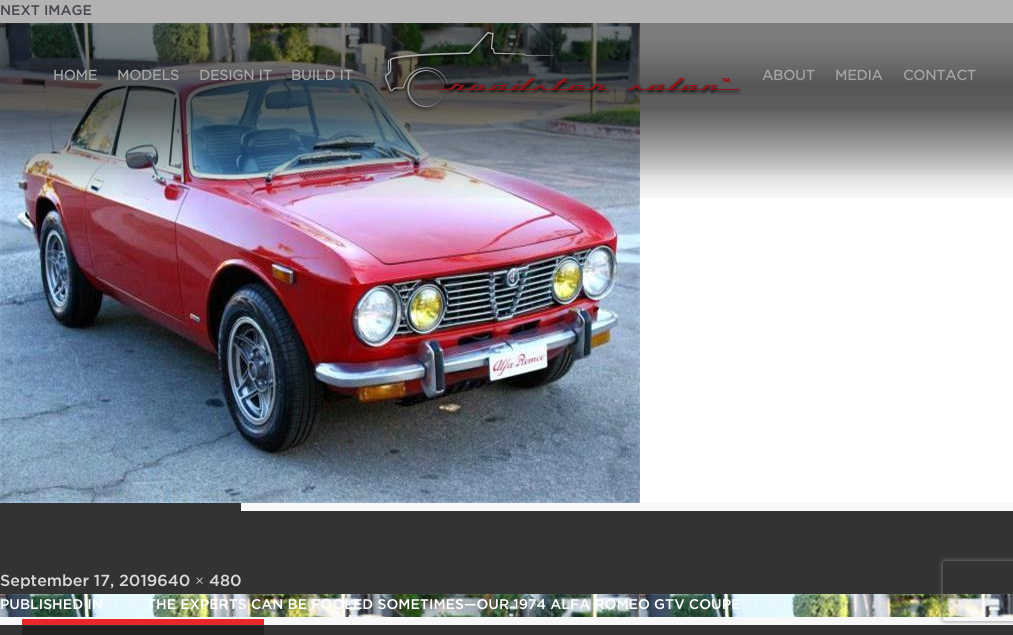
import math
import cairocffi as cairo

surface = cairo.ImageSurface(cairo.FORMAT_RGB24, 1013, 635)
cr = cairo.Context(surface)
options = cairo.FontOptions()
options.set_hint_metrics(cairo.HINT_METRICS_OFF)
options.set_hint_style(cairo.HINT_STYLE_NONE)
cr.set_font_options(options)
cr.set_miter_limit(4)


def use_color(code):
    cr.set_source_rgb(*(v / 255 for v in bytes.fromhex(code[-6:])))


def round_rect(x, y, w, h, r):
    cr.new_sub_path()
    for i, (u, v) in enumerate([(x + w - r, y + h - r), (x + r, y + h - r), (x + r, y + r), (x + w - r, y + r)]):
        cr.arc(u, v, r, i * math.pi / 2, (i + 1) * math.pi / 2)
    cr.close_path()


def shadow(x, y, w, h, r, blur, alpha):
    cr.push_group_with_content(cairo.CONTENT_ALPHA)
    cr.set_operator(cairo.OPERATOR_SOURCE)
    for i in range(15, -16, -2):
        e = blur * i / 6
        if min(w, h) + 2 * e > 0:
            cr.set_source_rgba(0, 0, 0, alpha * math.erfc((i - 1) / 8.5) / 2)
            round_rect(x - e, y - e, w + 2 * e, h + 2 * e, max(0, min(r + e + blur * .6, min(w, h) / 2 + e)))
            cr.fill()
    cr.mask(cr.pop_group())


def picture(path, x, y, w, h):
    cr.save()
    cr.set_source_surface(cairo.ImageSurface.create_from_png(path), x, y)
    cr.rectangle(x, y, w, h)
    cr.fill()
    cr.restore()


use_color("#ffffff")
cr.paint()
cr.select_font_face("Gotham Medium")
cr.set_font_size(14)
use_color("#636771")
cr.move_to(0, 15)
cr.show_text("NEXT IMAGE")
picture("img1.png", 0, 23, 640, 480)
gradient = cairo.LinearGradient(507, 0, 507, 180)
gradient.add_color_stop_rgba(0.2, 0, 0, 0, 0.3)
gradient.add_color_stop_rgba(0.47, 0, 0, 0, 0.45)
gradient.add_color_stop_rgba(1, 0, 0, 0, 0)
cr.set_source(gradient)
cr.rectangle(0, 0, 1013, 175)
cr.fill()
picture("img3.png", 382, 32, 360, 80)
cr.select_font_face("Gotham", cairo.FONT_SLANT_NORMAL, cairo.FONT_WEIGHT_BOLD)
use_color("#ffffff")
cr.move_to(53, 80)
cr.show_text("HOME")
cr.move_to(117, 80)
cr.show_text("MODELS")
cr.move_to(199, 80)
cr.show_text("DESIGN IT")
cr.move_to(291, 80)
cr.show_text("BUILD IT")
cr.move_to(762, 80)
cr.show_text("ABOUT")
cr.move_to(835, 80)
cr.show_text("MEDIA")
cr.move_to(903, 80)
cr.show_text("CONTACT")
gradient = cairo.LinearGradient(507, 23, 507, 203)
gradient.add_color_stop_rgba(0.2, 0, 0, 0, 0.3)
gradient.add_color_stop_rgba(0.47, 0, 0, 0, 0.45)
gradient.add_color_stop_rgba(1, 0, 0, 0, 0)
cr.set_source(gradient)
cr.rectangle(0, 23, 1013, 175)
cr.fill()
use_color("#333333")
cr.rectangle(0, 503, 1013, 91)
cr.fill()
use_color("#f8f8f8")
cr.rectangle(241, 503, 772, 8)
cr.fill()
cr.select_font_face("Gotham Medium")
cr.set_font_size(16)
use_color("#d8d8d8")
cr.move_to(0, 586)
cr.show_text("September 17, 2019640")
cr.select_font_face("Liberation Serif")
cr.move_to(195, 586)
cr.show_text("×")
cr.select_font_face("Gotham Medium")
cr.move_to(209, 586)
cr.show_text("480")
picture("img2.png", 0, 594, 1013, 23)
cr.set_font_size(14)
use_color("#ffffff")
cr.move_to(0, 609)
cr.show_text("PUBLISHED IN")
cr.move_to(147, 609)
cr.show_text("THE EXPERTS CAN BE FOOLED SOMETIMES—OUR 1974 ALFA ROMEO GTV COUPE")
use_color("#333333")
cr.rectangle(0, 625, 1013, 10)
cr.fill()
use_color("#f8f8f8")
cr.rectangle(0, 617, 1013, 8)
cr.fill()
use_color("#e9262a")
cr.rectangle(22, 619, 242, 6)
cr.fill()
use_color("#222222")
cr.rectangle(22, 626, 242, 9)
cr.fill()
cr.save()
cr.set_fill_rule(cairo.FILL_RULE_EVEN_ODD)
cr.new_path()
cr.move_to(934, 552)
cr.line_to(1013, 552)
cr.line_to(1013, 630)
cr.line_to(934, 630)
cr.close_path()
cr.move_to(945, 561)
cr.line_to(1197, 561)
cr.curve_to(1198, 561, 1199, 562, 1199, 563)
cr.line_to(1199, 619)
cr.curve_to(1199, 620, 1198, 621, 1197, 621)
cr.line_to(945, 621)
cr.curve_to(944, 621, 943, 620, 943, 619)
cr.line_to(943, 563)
cr.curve_to(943, 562, 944, 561, 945, 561)
cr.close_path()
cr.clip()
use_color("#808080")
shadow(943, 561, 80, 60, 2, 2.5, 1)
cr.restore()
surface.write_to_png("result.png")
